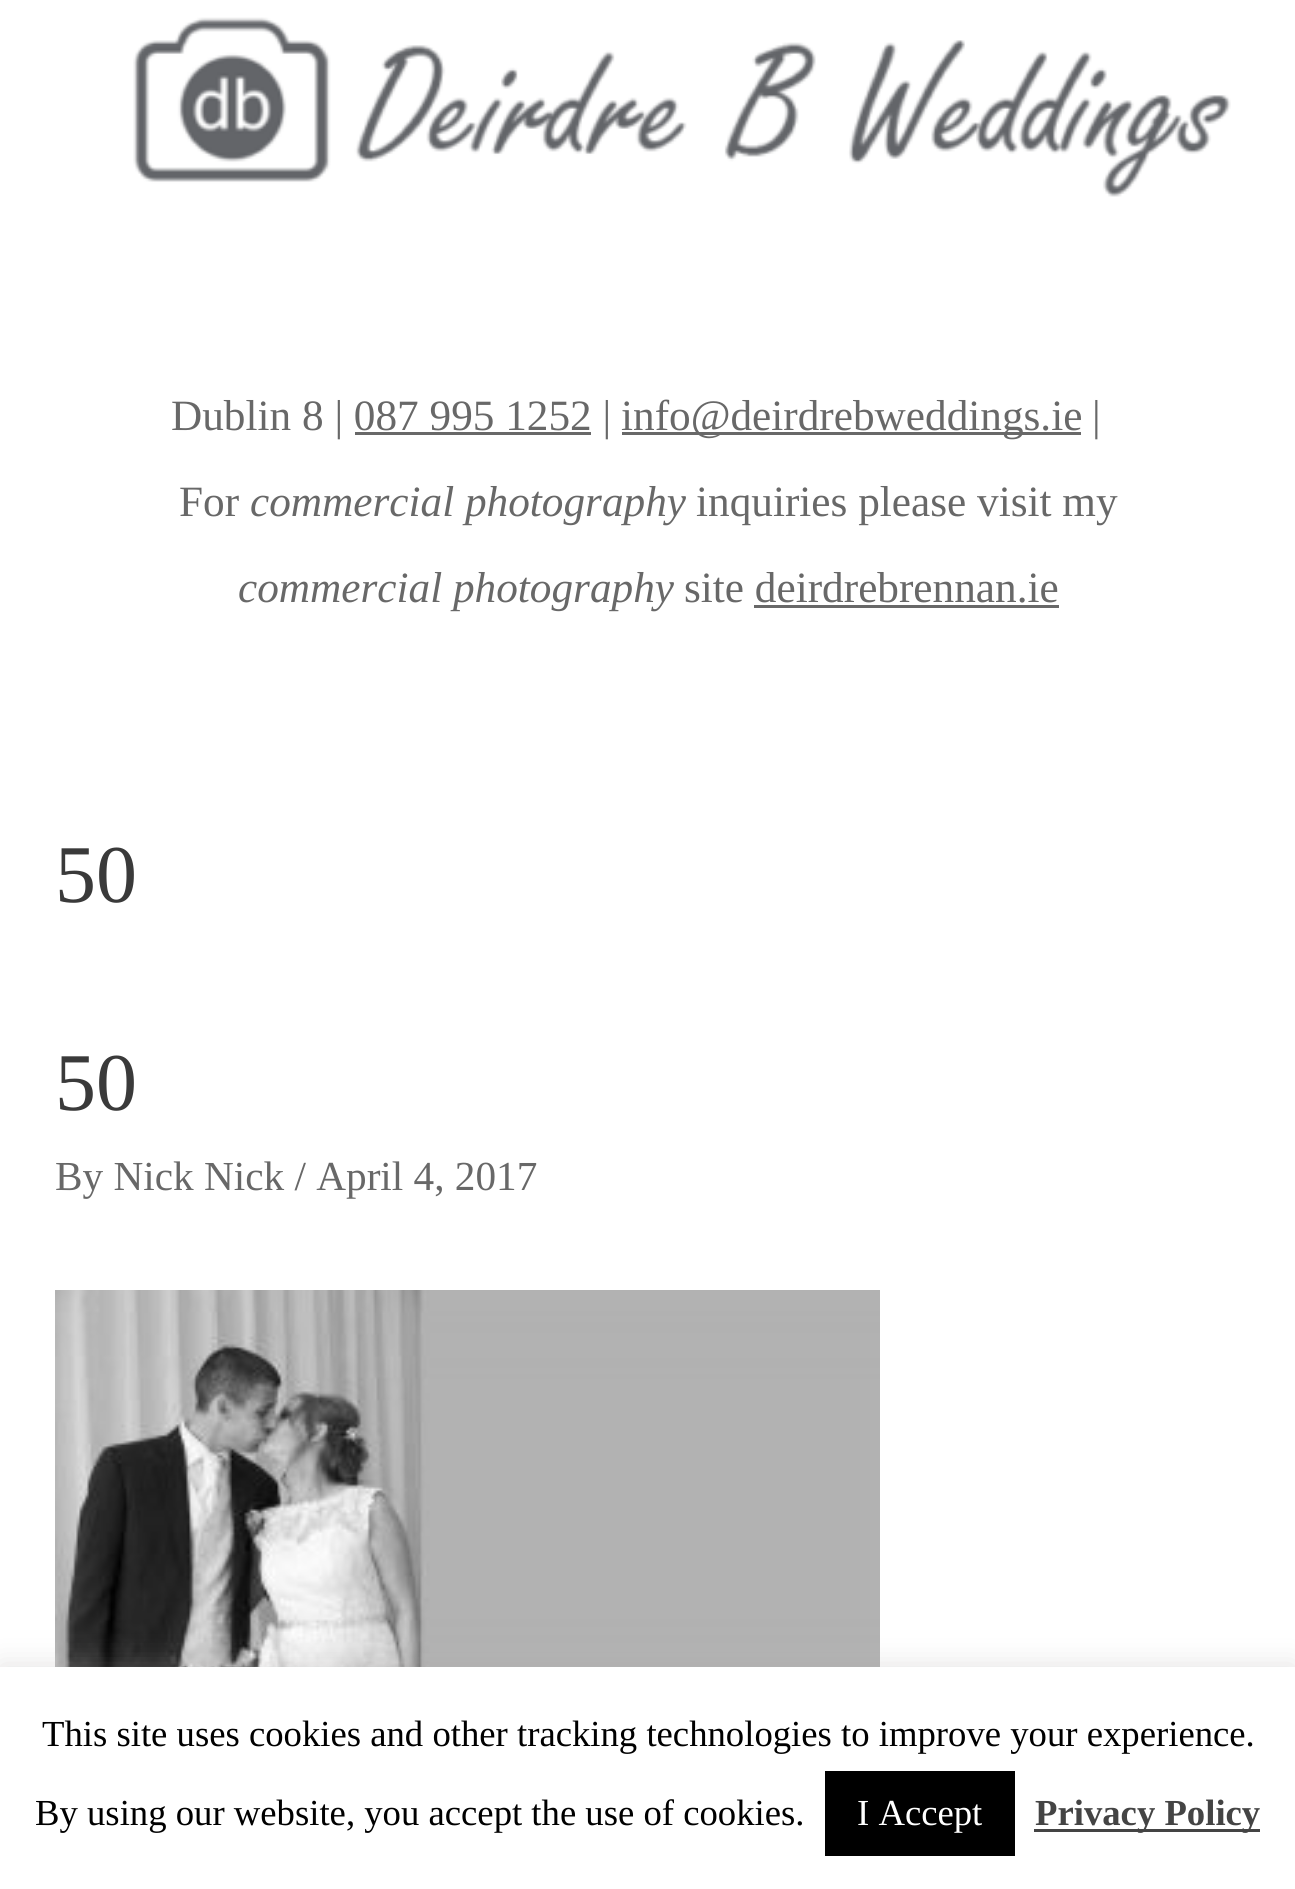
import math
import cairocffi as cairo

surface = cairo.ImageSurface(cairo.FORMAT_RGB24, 1295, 1889)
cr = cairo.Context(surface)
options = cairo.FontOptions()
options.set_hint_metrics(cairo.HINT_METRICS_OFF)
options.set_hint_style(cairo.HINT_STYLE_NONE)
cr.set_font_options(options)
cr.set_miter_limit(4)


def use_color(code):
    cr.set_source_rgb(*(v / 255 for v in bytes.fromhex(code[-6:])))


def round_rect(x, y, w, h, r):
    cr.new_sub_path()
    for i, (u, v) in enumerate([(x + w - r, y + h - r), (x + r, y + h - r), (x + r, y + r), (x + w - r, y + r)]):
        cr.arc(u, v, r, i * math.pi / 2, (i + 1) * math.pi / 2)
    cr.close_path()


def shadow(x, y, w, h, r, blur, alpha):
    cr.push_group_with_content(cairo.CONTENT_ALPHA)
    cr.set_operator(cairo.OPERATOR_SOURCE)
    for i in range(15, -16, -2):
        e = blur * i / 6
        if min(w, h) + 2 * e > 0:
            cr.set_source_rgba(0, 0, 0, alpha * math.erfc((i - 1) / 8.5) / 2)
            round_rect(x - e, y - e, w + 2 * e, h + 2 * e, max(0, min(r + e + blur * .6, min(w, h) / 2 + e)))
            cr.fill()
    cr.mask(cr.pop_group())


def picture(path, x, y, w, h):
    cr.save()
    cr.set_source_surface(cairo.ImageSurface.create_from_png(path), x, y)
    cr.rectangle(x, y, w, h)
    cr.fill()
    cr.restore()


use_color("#ffffff")
cr.paint()
picture("img1.png", 133, 17, 1098, 180)
cr.select_font_face("Liberation Serif")
cr.set_font_size(43.25)
use_color("#686868")
cr.move_to(171, 430)
cr.show_text("Dublin 8 | 087 995 1252 |")
cr.rectangle(622, 432, 459, 3)
cr.fill()
cr.move_to(621, 430)
cr.show_text("info@deirdrebweddings.ie")
cr.move_to(1092, 430)
cr.show_text("|")
cr.rectangle(355, 432, 236, 3)
cr.fill()
cr.move_to(179, 516)
cr.show_text("For")
cr.select_font_face("Liberation Serif", cairo.FONT_SLANT_ITALIC)
cr.move_to(250, 516)
cr.show_text("commercial photography")
cr.select_font_face("Liberation Serif")
cr.move_to(696, 516)
cr.show_text("inquiries please visit my")
cr.select_font_face("Liberation Serif", cairo.FONT_SLANT_ITALIC)
cr.move_to(238, 602)
cr.show_text("commercial photography")
cr.select_font_face("Liberation Serif")
cr.move_to(684, 602)
cr.show_text("site deirdrebrennan.ie")
cr.rectangle(754, 605, 305, 3)
cr.fill()
cr.set_font_size(82)
use_color("#3a3a3a")
cr.move_to(55, 902)
cr.show_text("50")
cr.move_to(55, 1110)
cr.show_text("50")
cr.set_font_size(41.25)
use_color("#686868")
cr.move_to(55, 1190)
cr.show_text("By Nick Nick / April 4, 2017")
picture("img2.png", 55, 1290, 825, 377)
use_color("#acabab")
shadow(0, 1664, 1295, 223, 0, 14, 0.3)
use_color("#ffffff")
cr.rectangle(0, 1667, 1295, 222)
cr.fill()
cr.set_font_size(36.7)
use_color("#000000")
cr.move_to(42, 1746)
cr.show_text("This site uses cookies and other tracking technologies to improve your experience.")
cr.move_to(35, 1825)
cr.show_text("By using our website, you accept the use of cookies.")
cr.rectangle(825, 1771, 190, 85)
cr.fill()
use_color("#ffffff")
cr.move_to(857, 1825)
cr.show_text("I Accept")
use_color("#444444")
cr.rectangle(1034, 1829, 226, 3)
cr.fill()
cr.select_font_face("Liberation Serif", cairo.FONT_SLANT_NORMAL, cairo.FONT_WEIGHT_BOLD)
cr.move_to(1035, 1825)
cr.show_text("Privacy Policy")
surface.write_to_png("result.png")
